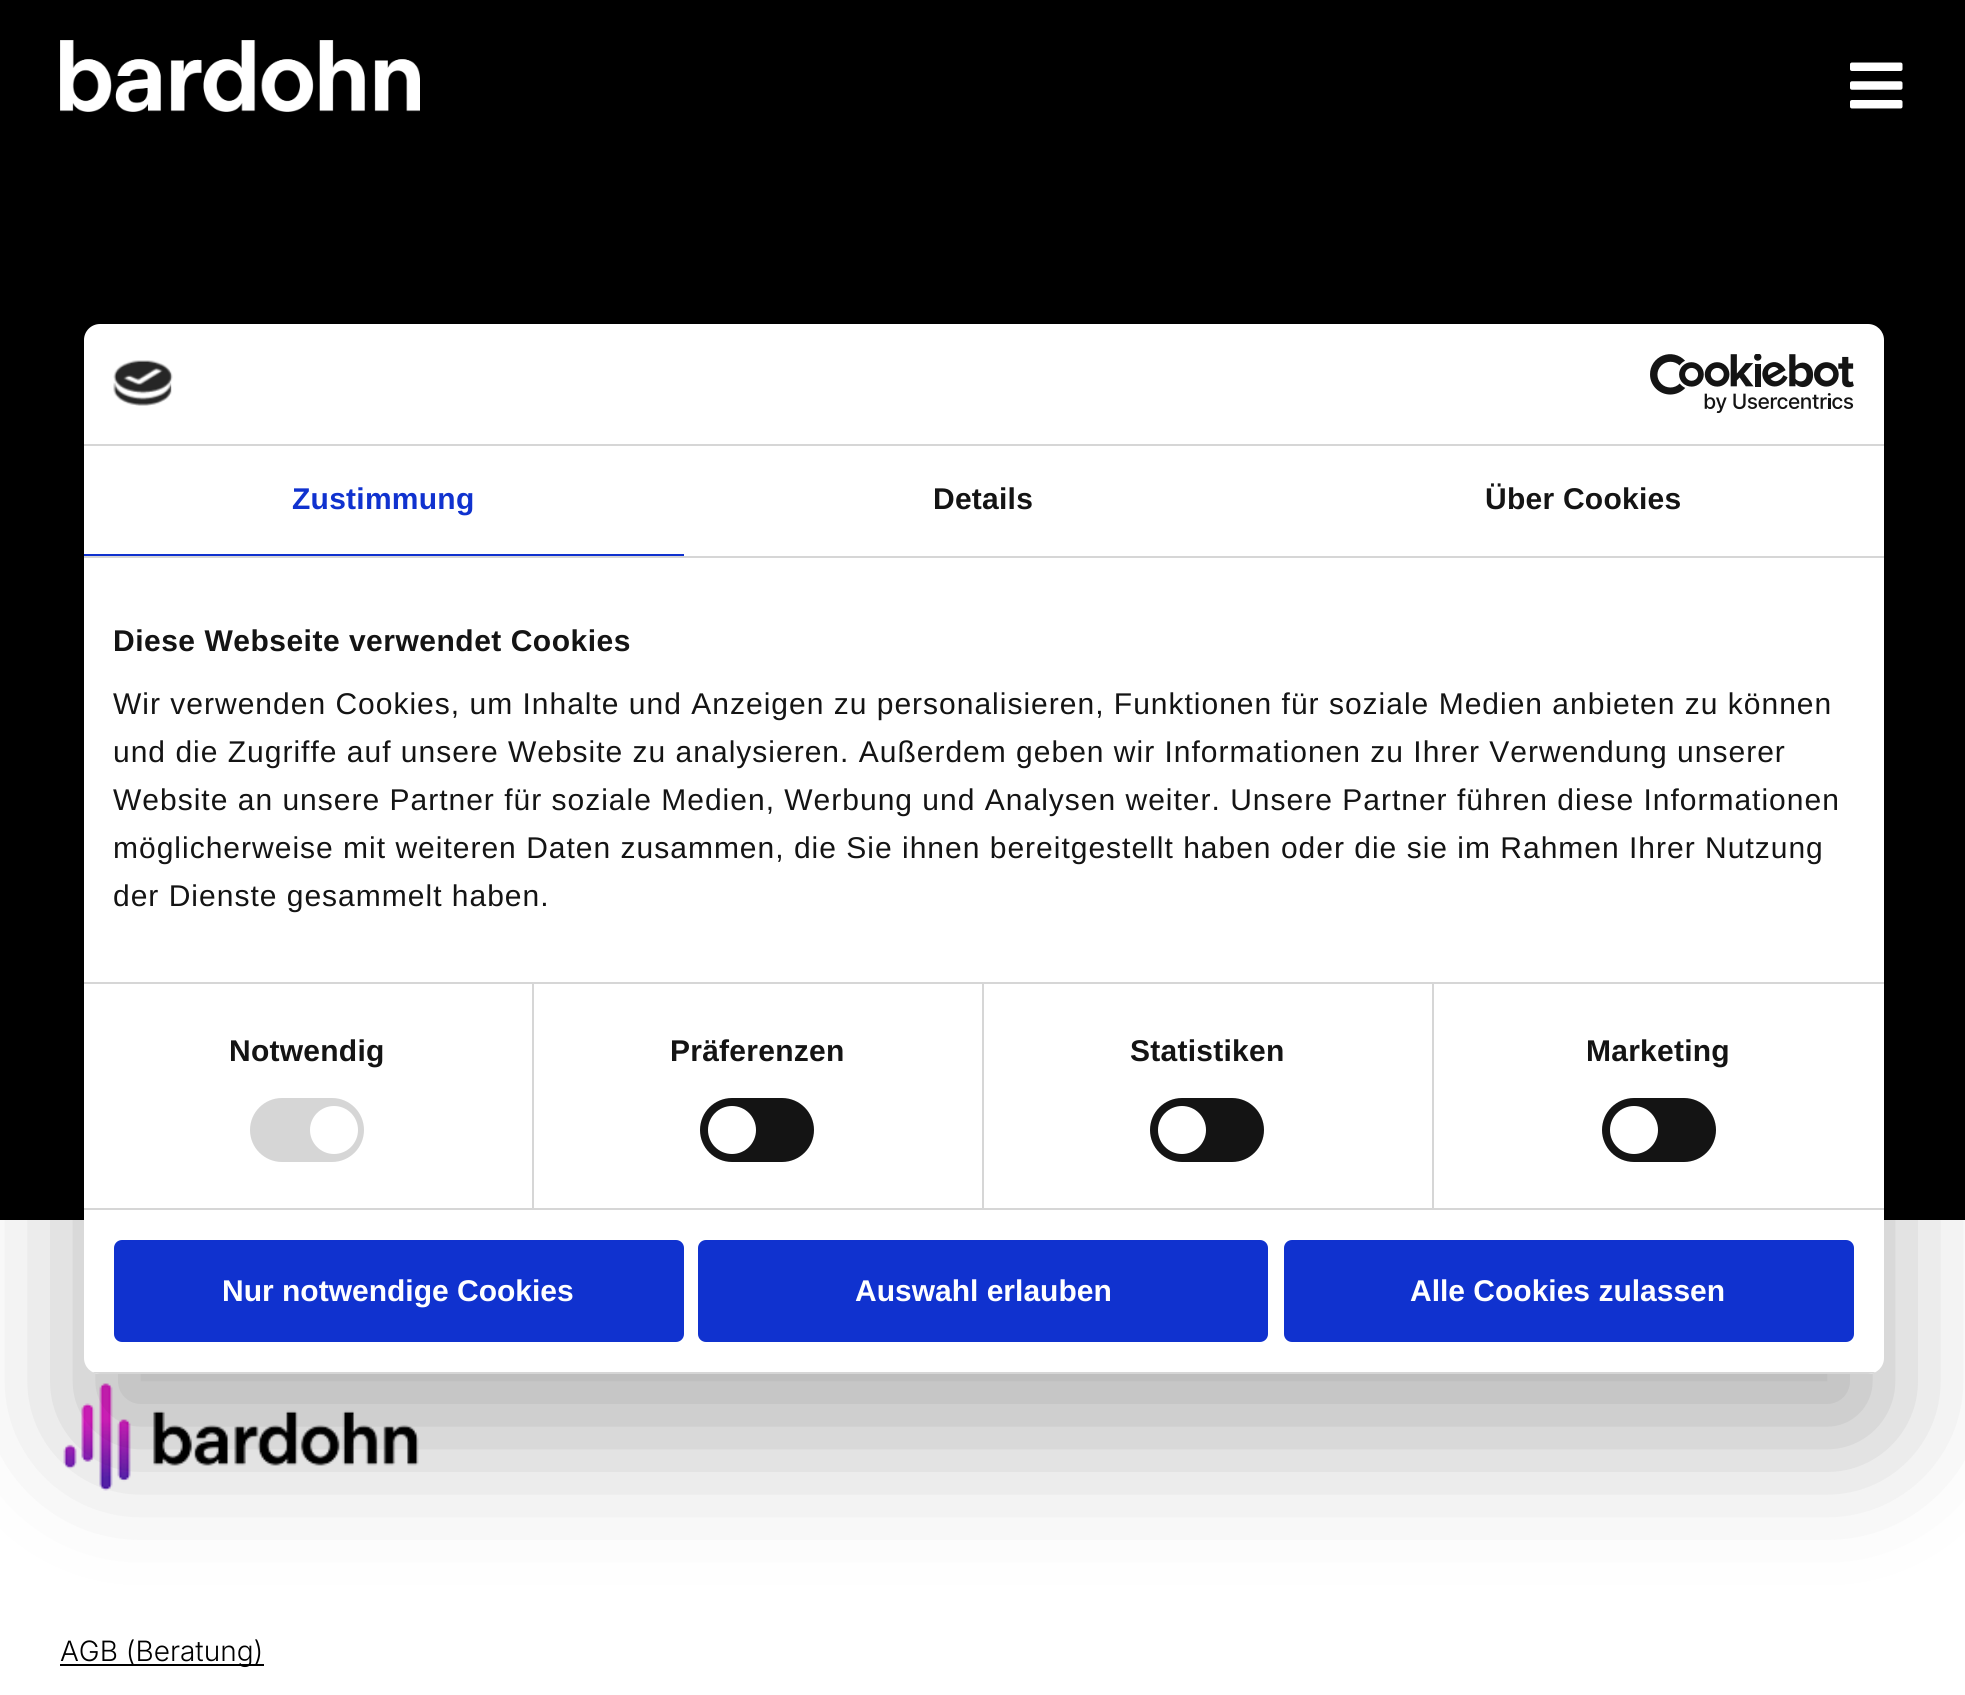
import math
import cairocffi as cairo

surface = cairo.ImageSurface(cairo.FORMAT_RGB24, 1965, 1695)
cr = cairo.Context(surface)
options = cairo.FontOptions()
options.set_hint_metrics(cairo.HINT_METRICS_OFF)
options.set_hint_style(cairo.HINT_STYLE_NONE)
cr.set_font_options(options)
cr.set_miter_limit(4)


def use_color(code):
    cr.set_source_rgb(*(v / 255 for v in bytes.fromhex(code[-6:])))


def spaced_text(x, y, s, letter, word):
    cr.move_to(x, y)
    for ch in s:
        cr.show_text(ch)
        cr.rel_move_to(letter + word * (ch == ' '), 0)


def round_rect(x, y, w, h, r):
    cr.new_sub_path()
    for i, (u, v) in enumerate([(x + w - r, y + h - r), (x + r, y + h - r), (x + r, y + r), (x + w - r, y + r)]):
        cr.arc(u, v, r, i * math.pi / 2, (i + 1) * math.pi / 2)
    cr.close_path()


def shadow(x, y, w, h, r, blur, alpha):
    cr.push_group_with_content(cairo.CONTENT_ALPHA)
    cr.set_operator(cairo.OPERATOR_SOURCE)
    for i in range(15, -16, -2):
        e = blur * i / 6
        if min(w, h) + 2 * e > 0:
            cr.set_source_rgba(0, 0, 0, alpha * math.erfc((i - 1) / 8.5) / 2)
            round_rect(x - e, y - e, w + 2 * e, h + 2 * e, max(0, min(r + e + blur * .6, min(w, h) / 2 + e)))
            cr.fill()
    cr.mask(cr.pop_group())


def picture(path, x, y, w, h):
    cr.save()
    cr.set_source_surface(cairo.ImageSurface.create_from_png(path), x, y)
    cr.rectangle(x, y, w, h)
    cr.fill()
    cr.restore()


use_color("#000000")
cr.paint()
use_color("#ffffff")
cr.rectangle(0, 1220, 1965, 475)
cr.fill()
picture("img5.png", 63, 1383, 356, 108)
use_color("#000000")
shadow(84, 388, 1800, 1050, 16, 68, 0.3)
use_color("#ffffff")
round_rect(84, 324, 1800, 1050, 16)
cr.fill()
use_color("#d6d6d6")
cr.rectangle(84, 444, 1800, 2)
cr.fill()
picture("img1.png", 113, 360, 60, 46)
picture("img2.png", 1650, 354, 204, 60)
cr.rectangle(84, 556, 1800, 2)
cr.fill()
use_color("#1032cf")
cr.rectangle(84, 554, 600, 2)
cr.fill()
cr.select_font_face("Liberation Sans", cairo.FONT_SLANT_NORMAL, cairo.FONT_WEIGHT_BOLD)
cr.set_font_size(30)
spaced_text(292, 509, "Zustimmung", 0.25, 0)
use_color("#141414")
spaced_text(933, 509, "Details", 0.25, 0)
spaced_text(1485, 509, "Über Cookies", 0.25, 0)
use_color("#d6d6d6")
cr.rectangle(84, 982, 1800, 2)
cr.fill()
use_color("#141414")
spaced_text(113, 651, "Diese Webseite verwendet Cookies", 0.5, 0)
cr.select_font_face("Liberation Sans")
spaced_text(113, 714, "Wir verwenden Cookies, um Inhalte und Anzeigen zu personalisieren, Funktionen für soziale Medien anbieten zu können", 1, 0)
spaced_text(113, 762, "und die Zugriffe auf unsere Website zu analysieren. Außerdem geben wir Informationen zu Ihrer Verwendung unserer", 1, 0)
spaced_text(113, 810, "Website an unsere Partner für soziale Medien, Werbung und Analysen weiter. Unsere Partner führen diese Informationen", 1, 0)
spaced_text(113, 858, "möglicherweise mit weiteren Daten zusammen, die Sie ihnen bereitgestellt haben oder die sie im Rahmen Ihrer Nutzung", 1, 0)
spaced_text(113, 906, "der Dienste gesammelt haben.", 1, 0)
use_color("#d6d6d6")
cr.rectangle(84, 1208, 1800, 2)
cr.fill()
cr.rectangle(532, 984, 2, 224)
cr.fill()
cr.select_font_face("Liberation Sans", cairo.FONT_SLANT_NORMAL, cairo.FONT_WEIGHT_BOLD)
use_color("#141414")
spaced_text(229, 1061, "Notwendig", 0.25, 0)
use_color("#d6d6d6")
round_rect(250, 1098, 114, 64, 32)
cr.fill()
use_color("#ffffff")
cr.arc(334, 1130, 24, 0, 2 * math.pi)
cr.fill()
use_color("#d6d6d6")
cr.rectangle(982, 984, 2, 224)
cr.fill()
use_color("#141414")
spaced_text(670, 1061, "Präferenzen", 0.25, 0)
round_rect(700, 1098, 114, 64, 32)
cr.fill()
use_color("#ffffff")
cr.arc(732, 1130, 24, 0, 2 * math.pi)
cr.fill()
use_color("#d6d6d6")
cr.rectangle(1432, 984, 2, 224)
cr.fill()
use_color("#141414")
spaced_text(1130, 1061, "Statistiken", 0.25, 0)
round_rect(1150, 1098, 114, 64, 32)
cr.fill()
use_color("#ffffff")
cr.arc(1182, 1130, 24, 0, 2 * math.pi)
cr.fill()
use_color("#141414")
spaced_text(1586, 1061, "Marketing", 0.25, 0)
round_rect(1602, 1098, 114, 64, 32)
cr.fill()
use_color("#ffffff")
cr.arc(1634, 1130, 24, 0, 2 * math.pi)
cr.fill()
cr.save()
round_rect(84, 324, 1800, 1050, 16)
cr.clip()
use_color("#d6d6d6")
cr.rectangle(84, 1372, 1800, 2)
cr.fill()
cr.restore()
use_color("#1032cf")
round_rect(116, 1242, 566, 98, 6)
cr.fill_preserve()
cr.set_line_width(4)
cr.stroke()
use_color("#ffffff")
cr.move_to(222, 1301)
cr.show_text("Nur notwendige Cookies")
use_color("#1032cf")
round_rect(700, 1242, 566, 98, 6)
cr.fill_preserve()
cr.stroke()
use_color("#ffffff")
cr.move_to(855, 1301)
cr.show_text("Auswahl erlauben")
use_color("#1032cf")
round_rect(1286, 1242, 566, 98, 6)
cr.fill_preserve()
cr.stroke()
use_color("#ffffff")
cr.move_to(1410, 1301)
cr.show_text("Alle Cookies zulassen")
picture("img3.png", 60, 40, 360, 72)
picture("img4.png", 1850, 62, 53, 47)
use_color("#000000")
cr.rectangle(60, 1664, 204, 2)
cr.fill()
cr.select_font_face("Inter Light")
cr.set_font_size(28)
cr.move_to(60, 1661)
cr.show_text("AGB (Beratung)")
surface.write_to_png("result.png")
